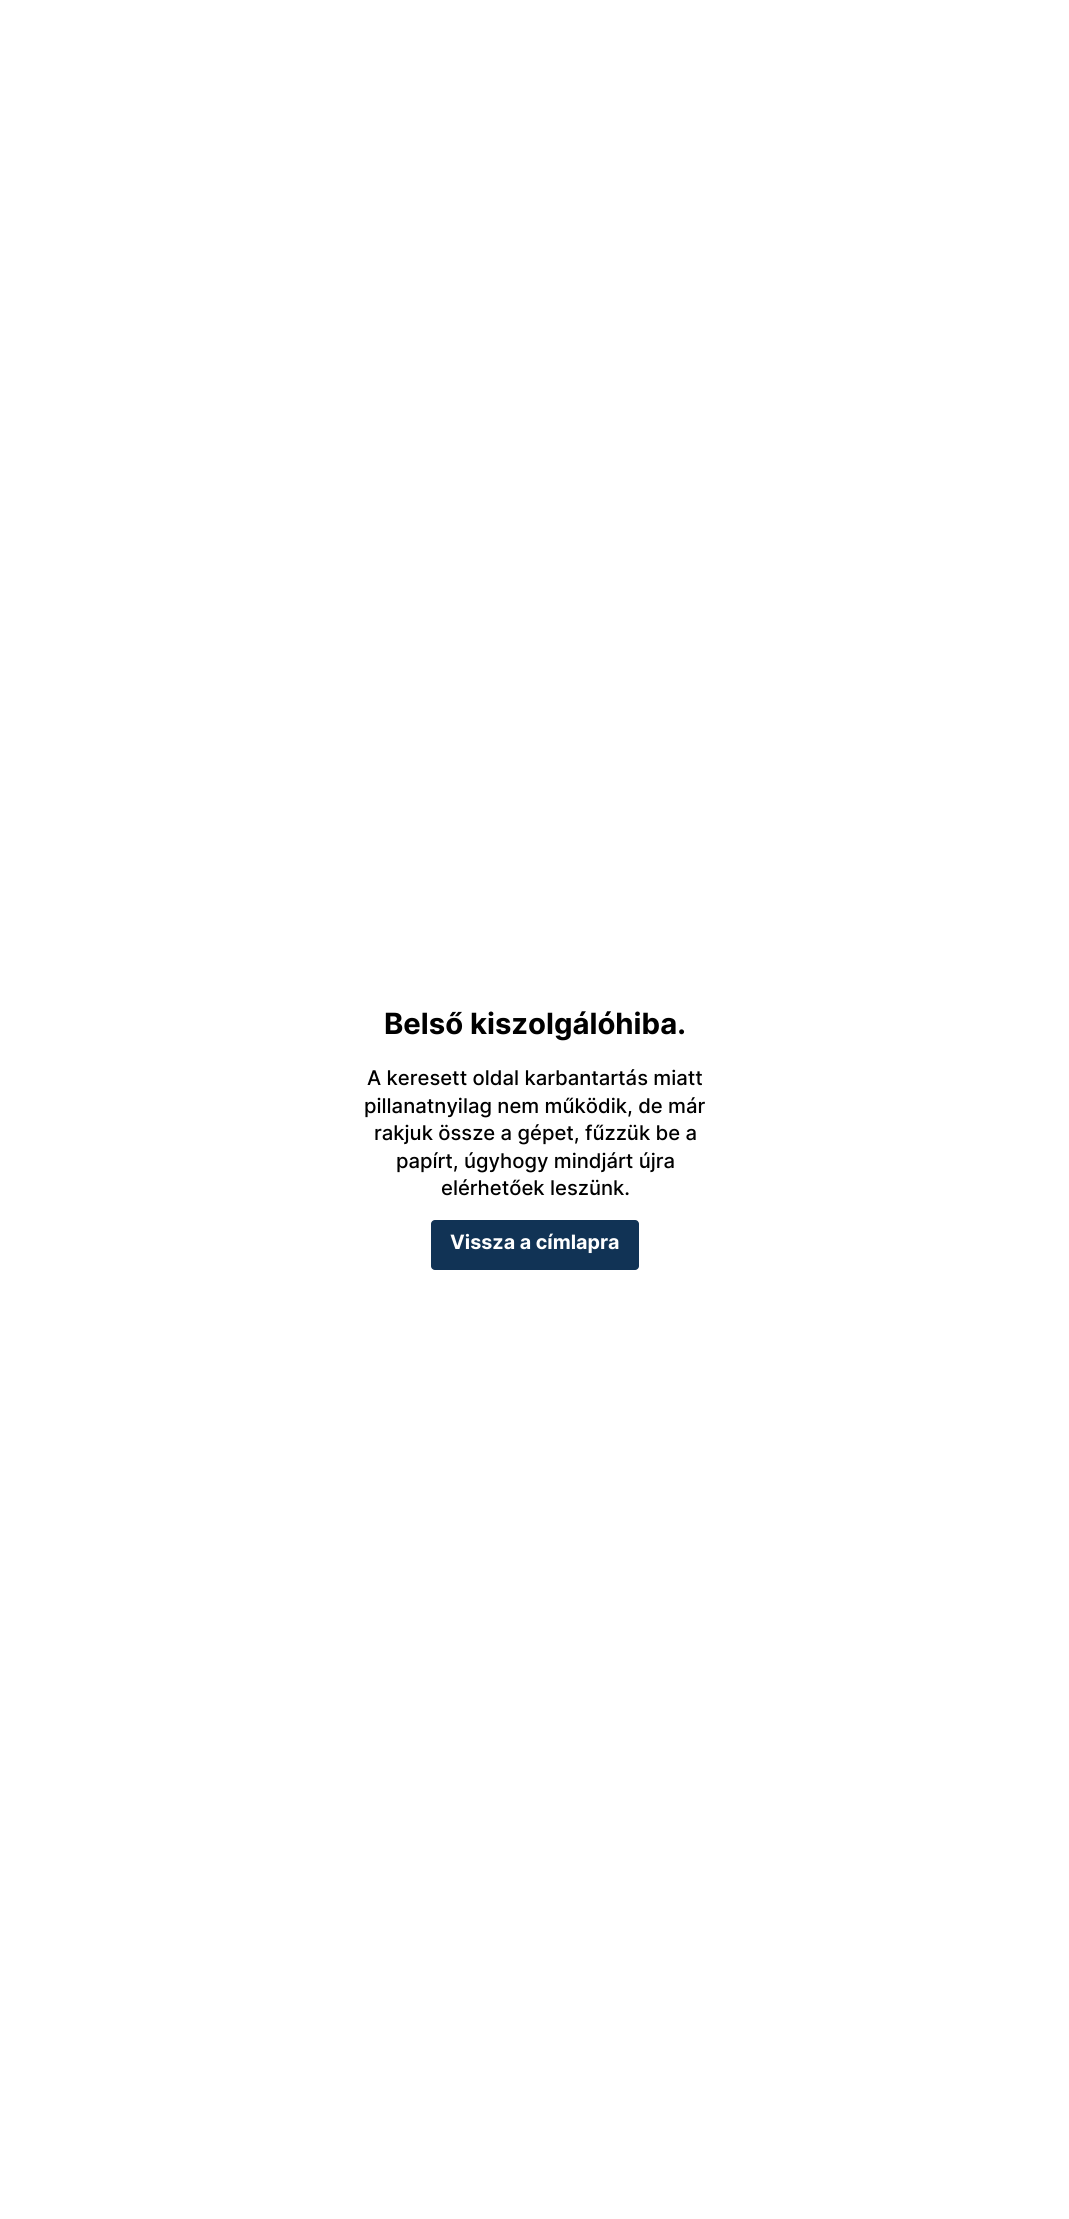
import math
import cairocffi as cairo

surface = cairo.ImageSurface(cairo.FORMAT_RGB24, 1069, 2219)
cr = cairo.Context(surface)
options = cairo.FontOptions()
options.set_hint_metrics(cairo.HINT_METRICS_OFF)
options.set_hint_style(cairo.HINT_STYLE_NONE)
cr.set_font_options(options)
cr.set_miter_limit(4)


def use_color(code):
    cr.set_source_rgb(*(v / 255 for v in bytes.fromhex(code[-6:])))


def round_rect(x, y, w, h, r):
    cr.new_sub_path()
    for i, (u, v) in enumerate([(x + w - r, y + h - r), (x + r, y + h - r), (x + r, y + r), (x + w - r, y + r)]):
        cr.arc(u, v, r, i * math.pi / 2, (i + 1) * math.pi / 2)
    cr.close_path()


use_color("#ffffff")
cr.paint()
cr.select_font_face("Inter", cairo.FONT_SLANT_NORMAL, cairo.FONT_WEIGHT_BOLD)
cr.set_font_size(29.25)
use_color("#000000")
cr.move_to(384, 1034)
cr.show_text("Belső kiszolgálóhiba.")
cr.select_font_face("Inter Medium")
cr.set_font_size(20.25)
cr.move_to(367, 1085)
cr.show_text("A keresett oldal karbantartás miatt")
cr.move_to(364, 1113)
cr.show_text("pillanatnyilag nem működik, de már")
cr.move_to(374, 1140)
cr.show_text("rakjuk össze a gépet, fűzzük be a")
cr.move_to(396, 1168)
cr.show_text("papírt, úgyhogy mindjárt újra")
cr.move_to(441, 1195)
cr.show_text("elérhetőek leszünk.")
use_color("#113355")
round_rect(431, 1220, 208, 50, 4)
cr.fill()
cr.select_font_face("Inter", cairo.FONT_SLANT_NORMAL, cairo.FONT_WEIGHT_BOLD)
cr.set_font_size(19.75)
use_color("#ffffff")
cr.move_to(450, 1249)
cr.show_text("Vissza a címlapra")
surface.write_to_png("result.png")
